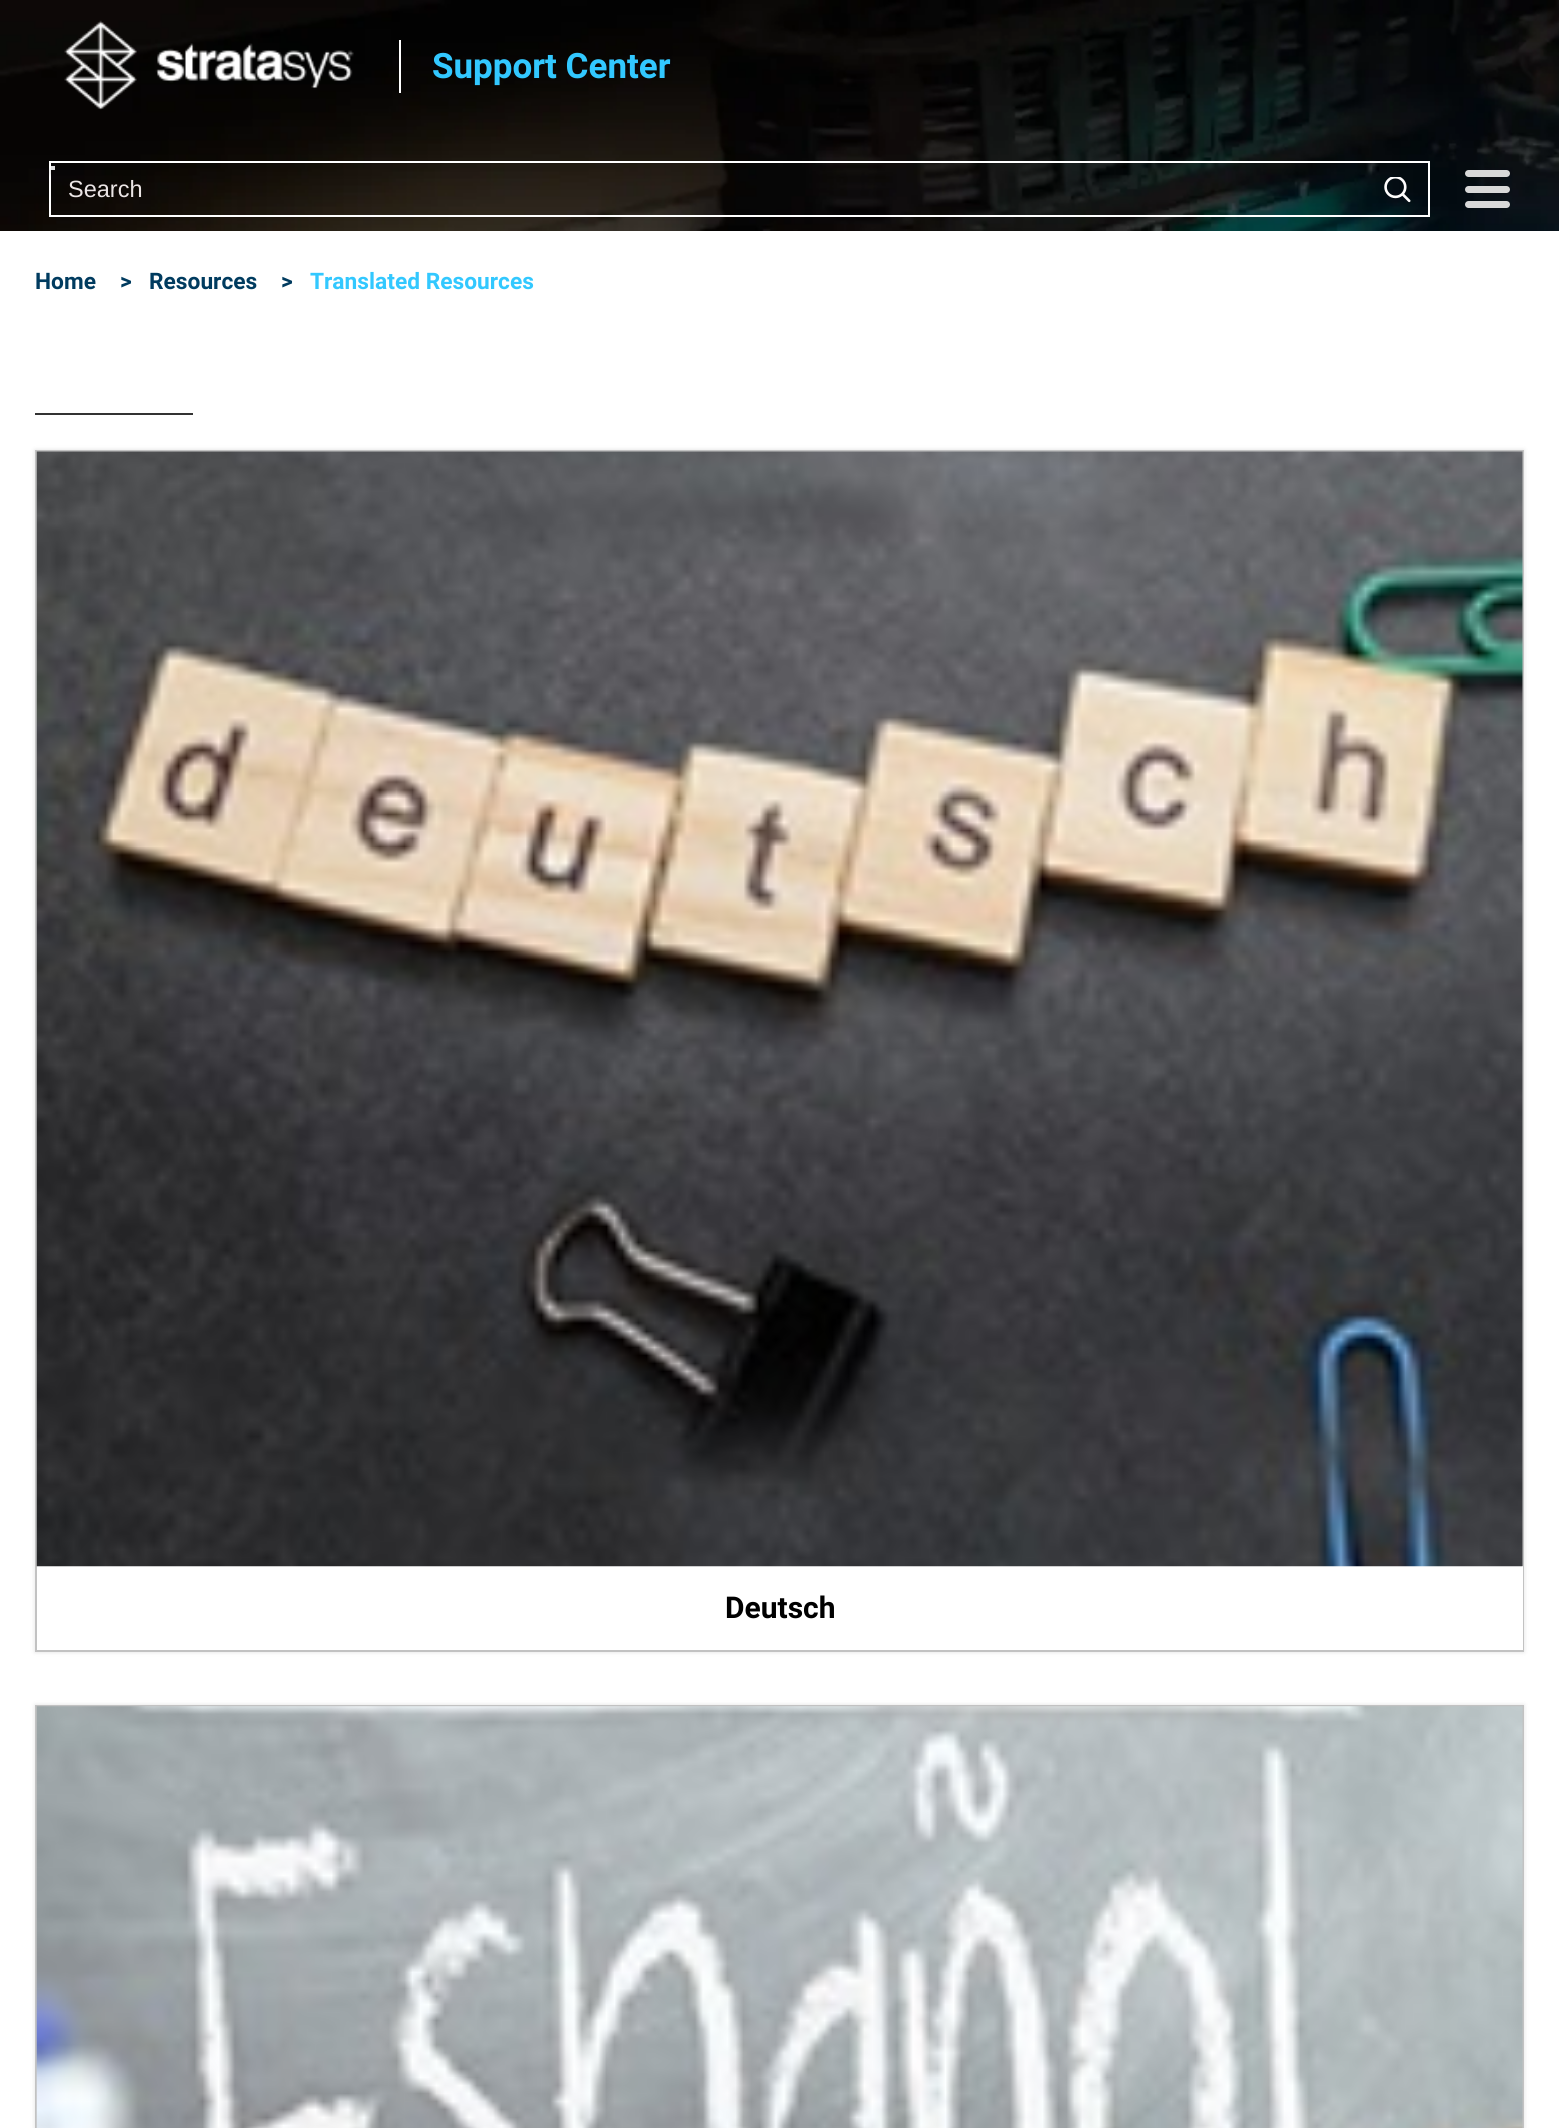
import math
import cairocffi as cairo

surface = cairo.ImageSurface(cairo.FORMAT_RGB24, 1559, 2128)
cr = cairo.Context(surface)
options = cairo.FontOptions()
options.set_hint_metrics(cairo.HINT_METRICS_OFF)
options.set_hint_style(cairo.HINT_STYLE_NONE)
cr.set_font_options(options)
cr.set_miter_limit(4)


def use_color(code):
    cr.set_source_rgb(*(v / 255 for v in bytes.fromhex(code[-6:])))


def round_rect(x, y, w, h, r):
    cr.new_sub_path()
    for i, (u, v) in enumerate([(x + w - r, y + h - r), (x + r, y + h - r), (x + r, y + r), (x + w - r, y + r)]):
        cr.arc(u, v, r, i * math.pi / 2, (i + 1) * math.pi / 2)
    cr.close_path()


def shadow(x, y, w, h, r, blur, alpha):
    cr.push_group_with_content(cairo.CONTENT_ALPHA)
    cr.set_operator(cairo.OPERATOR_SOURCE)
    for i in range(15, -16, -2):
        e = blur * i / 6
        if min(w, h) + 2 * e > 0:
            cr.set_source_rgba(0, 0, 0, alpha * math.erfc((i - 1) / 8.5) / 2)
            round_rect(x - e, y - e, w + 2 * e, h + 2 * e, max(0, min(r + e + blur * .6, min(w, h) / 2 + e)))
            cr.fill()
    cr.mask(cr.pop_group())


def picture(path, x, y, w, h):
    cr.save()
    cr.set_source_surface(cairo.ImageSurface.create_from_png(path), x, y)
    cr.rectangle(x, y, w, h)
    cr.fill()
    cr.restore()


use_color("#ffffff")
cr.paint()
picture("img1.png", 0, 0, 1559, 231)
picture("img2.png", 64, 20, 290, 90)
use_color("#ffffff")
cr.rectangle(399, 40, 2, 53)
cr.fill()
cr.select_font_face("Roboto", cairo.FONT_SLANT_NORMAL, cairo.FONT_WEIGHT_BOLD)
cr.set_font_size(35)
use_color("#32c8ff")
cr.move_to(432, 78)
cr.show_text("Support Center")
cr.rectangle(50, 162, 1379, 54)
use_color("#ffffff")
cr.stroke()
use_color("#000000")
shadow(51, 170, 4, 4, 0, 2, 0.16)
use_color("#e0e0e0")
cr.rectangle(51, 166, 4, 4)
cr.fill()
cr.select_font_face("Liberation Sans")
cr.set_font_size(23.5)
use_color("#ebe5e5")
cr.move_to(68, 197)
cr.show_text("Search")
picture("img3.png", 1384, 177, 27, 26)
use_color("#d8d8d8")
round_rect(1465, 170, 45, 7, 3.5)
cr.fill()
round_rect(1465, 186, 45, 7, 3.5)
cr.fill()
round_rect(1465, 201, 45, 7, 3.5)
cr.fill()
cr.select_font_face("Roboto", cairo.FONT_SLANT_NORMAL, cairo.FONT_WEIGHT_BOLD)
cr.set_font_size(22.75)
use_color("#003b5f")
cr.move_to(35, 289)
cr.show_text("Home")
cr.move_to(120, 289)
cr.show_text(">")
cr.move_to(149, 289)
cr.show_text("Resources")
cr.move_to(281, 289)
cr.show_text(">")
use_color("#32c8ff")
cr.move_to(310, 289)
cr.show_text("Translated Resources")
use_color("#333333")
cr.rectangle(35, 413, 158, 2)
cr.fill()
use_color("#000000")
shadow(35, 450, 1489, 1202, 0, 2.5, 0.12)
cr.rectangle(36, 451, 1487, 1200)
use_color("#c2c2c2")
cr.stroke()
use_color("#ffffff")
cr.rectangle(37, 1566, 1486, 84)
cr.fill()
picture("img4.png", 36, 451, 1487, 1116)
cr.set_font_size(30)
use_color("#000000")
cr.move_to(725, 1618)
cr.show_text("Deutsch")
use_color("#000000")
shadow(35, 1705, 1489, 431, 0, 2.5, 0.12)
cr.rectangle(36, 1706, 1487, 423)
use_color("#c2c2c2")
cr.stroke()
picture("img5.png", 36, 1706, 1487, 422)
surface.write_to_png("result.png")
